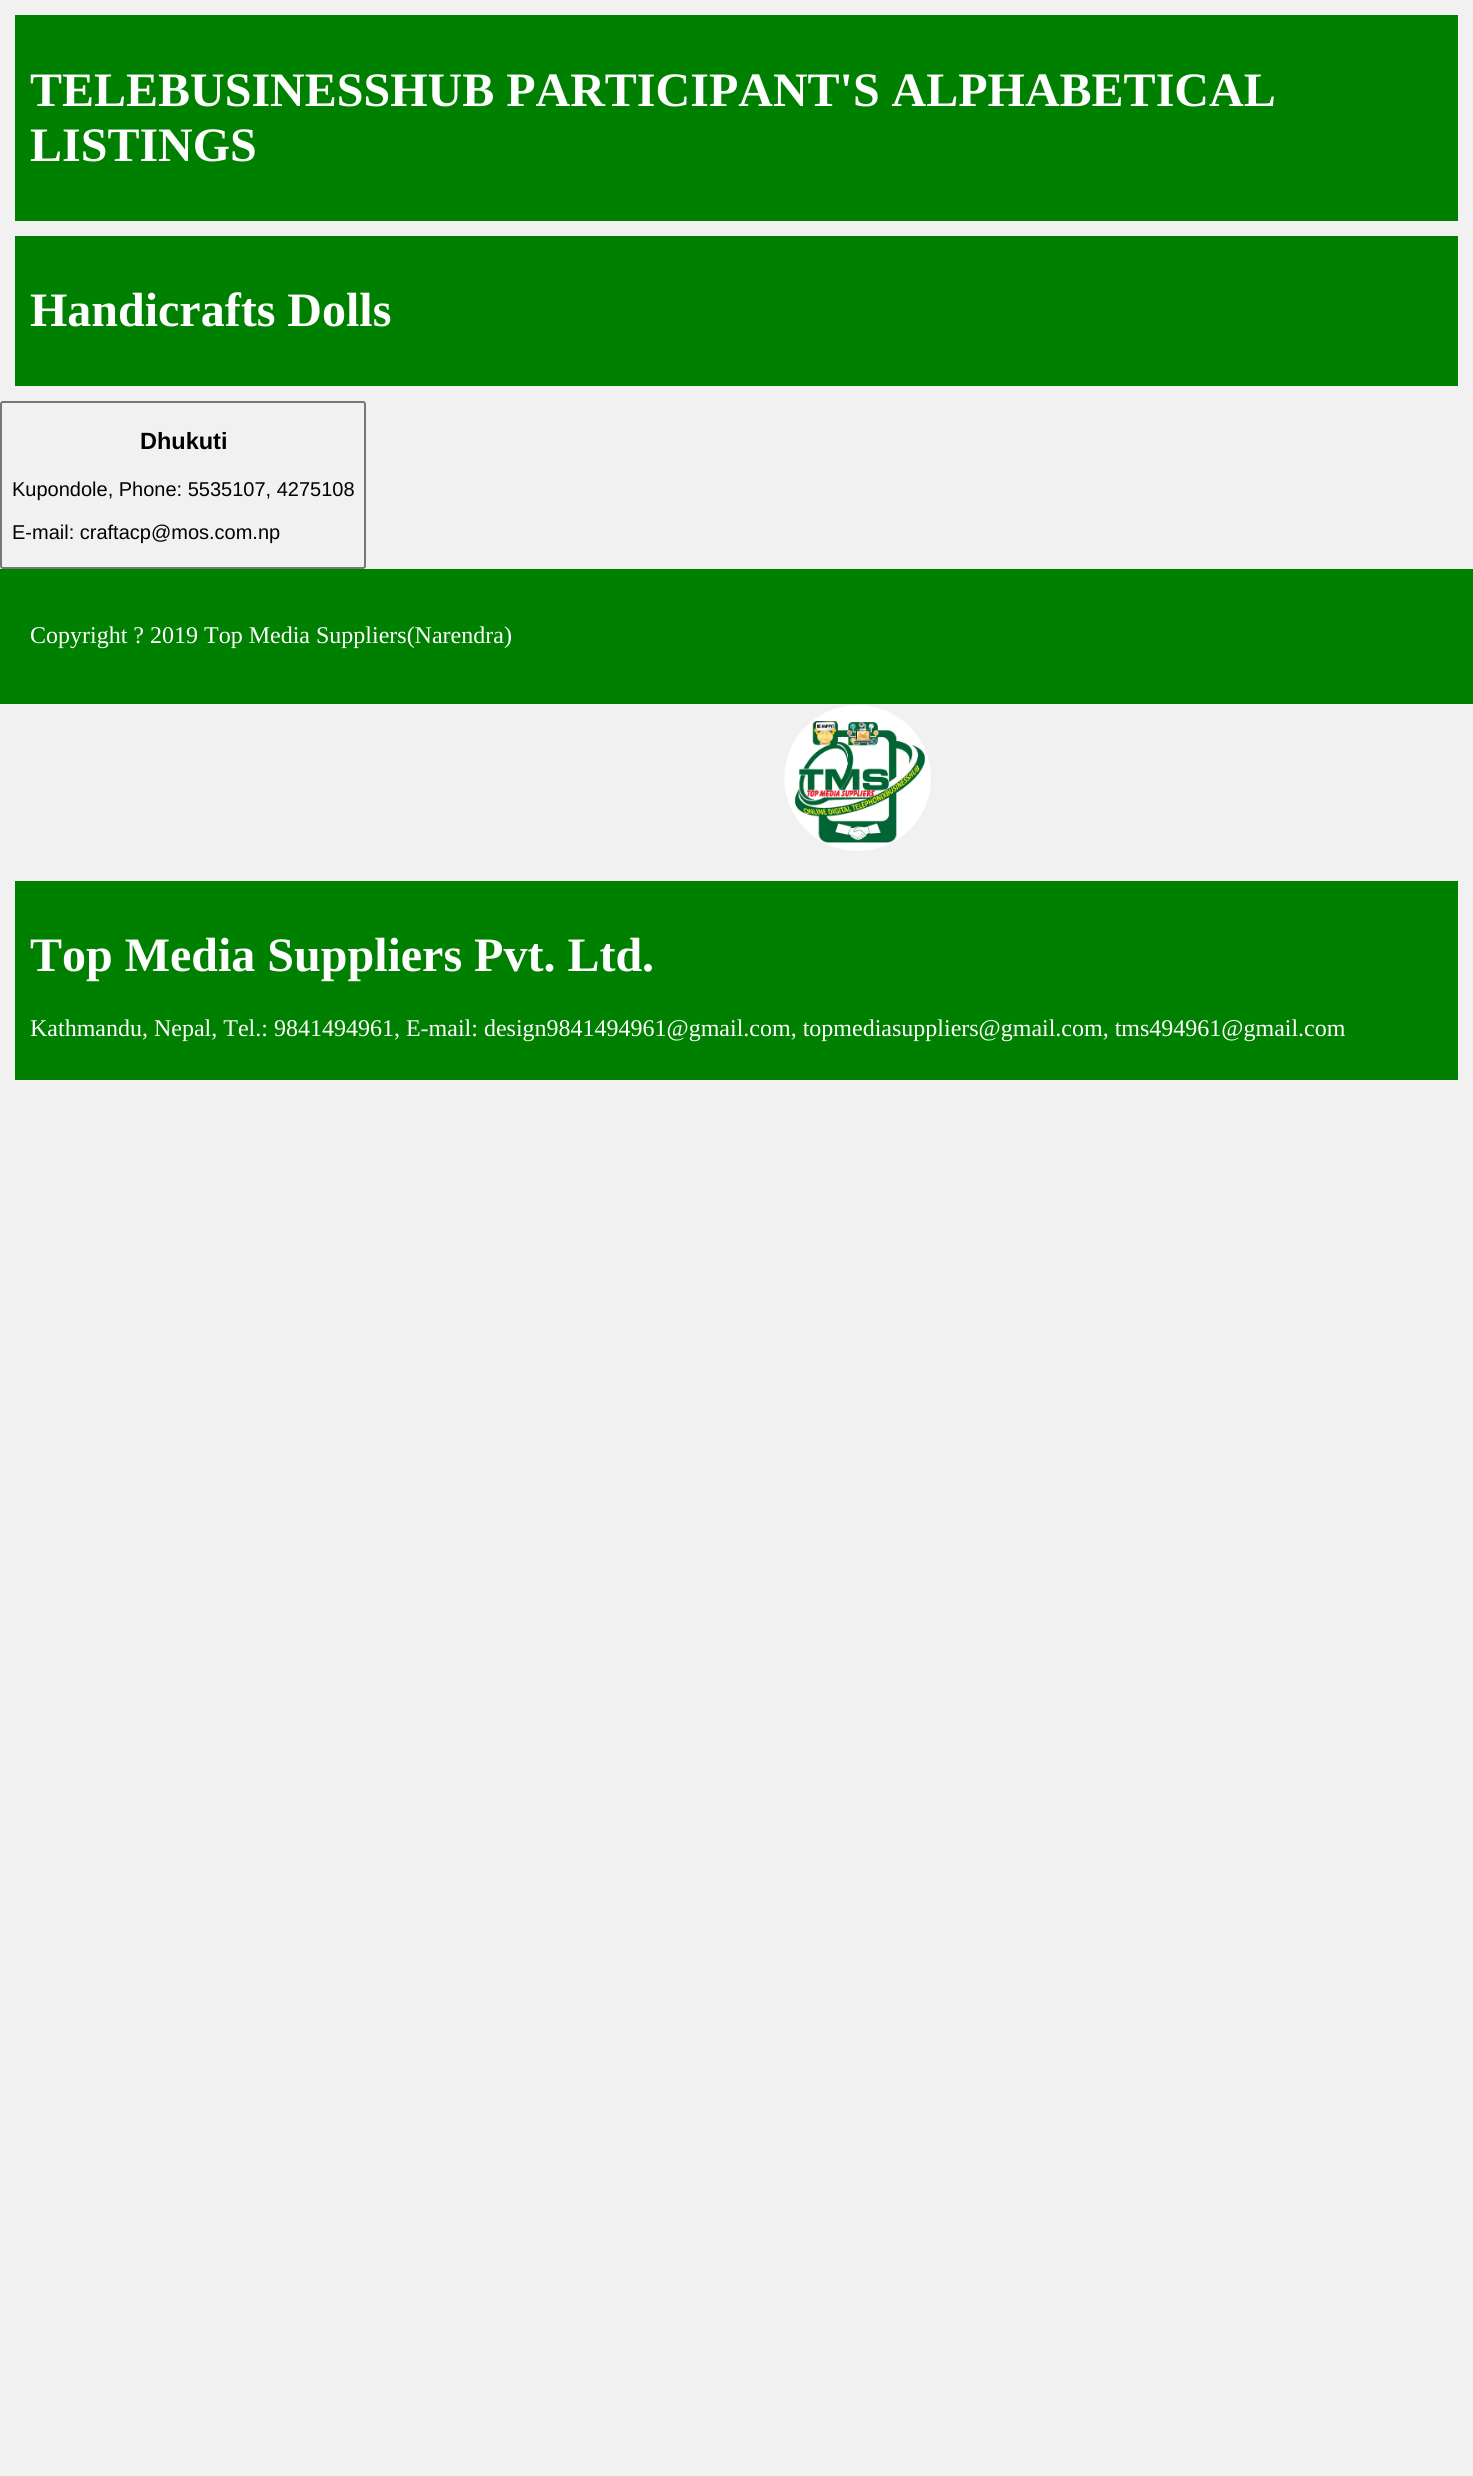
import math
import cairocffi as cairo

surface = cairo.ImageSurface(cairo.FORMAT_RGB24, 1473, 2476)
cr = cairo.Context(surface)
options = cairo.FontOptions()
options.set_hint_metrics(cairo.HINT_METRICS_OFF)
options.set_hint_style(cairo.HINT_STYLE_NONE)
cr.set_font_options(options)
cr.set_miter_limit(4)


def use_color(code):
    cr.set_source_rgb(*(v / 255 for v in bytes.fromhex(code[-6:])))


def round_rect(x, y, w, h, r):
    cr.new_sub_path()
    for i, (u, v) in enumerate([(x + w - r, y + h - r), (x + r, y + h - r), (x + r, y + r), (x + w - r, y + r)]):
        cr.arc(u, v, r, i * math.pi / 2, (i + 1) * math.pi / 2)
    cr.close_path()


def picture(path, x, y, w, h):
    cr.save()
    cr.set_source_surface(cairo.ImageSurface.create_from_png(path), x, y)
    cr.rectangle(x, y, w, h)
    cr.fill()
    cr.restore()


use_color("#f1f1f1")
cr.paint()
use_color("#008000")
cr.rectangle(15, 15, 1443, 206)
cr.fill()
cr.select_font_face("Liberation Serif", cairo.FONT_SLANT_NORMAL, cairo.FONT_WEIGHT_BOLD)
cr.set_font_size(48)
use_color("#ffffff")
cr.move_to(30, 106)
cr.show_text("TELEBUSINESSHUB PARTICIPANT'S ALPHABETICAL")
cr.move_to(30, 161)
cr.show_text("LISTINGS")
use_color("#008000")
cr.rectangle(15, 236, 1443, 150)
cr.fill()
use_color("#ffffff")
cr.move_to(30, 326)
cr.show_text("Handicrafts Dolls")
round_rect(1, 402, 364, 166, 2)
use_color("#767676")
cr.stroke()
cr.select_font_face("Liberation Sans", cairo.FONT_SLANT_NORMAL, cairo.FONT_WEIGHT_BOLD)
cr.set_font_size(23.5)
use_color("#000000")
cr.move_to(140, 449)
cr.show_text("Dhukuti")
cr.select_font_face("Liberation Sans")
cr.set_font_size(20)
cr.move_to(12, 496)
cr.show_text("Kupondole, Phone: 5535107, 4275108")
cr.move_to(12, 539)
cr.show_text("E-mail: craftacp@mos.com.np")
use_color("#008000")
cr.rectangle(0, 569, 1473, 135)
cr.fill()
cr.select_font_face("Liberation Serif")
cr.set_font_size(24)
use_color("#ffffff")
cr.move_to(30, 643)
cr.show_text("Copyright ? 2019 Top Media Suppliers(Narendra)")
picture("img1.png", 784, 705, 147, 146)
use_color("#008000")
cr.rectangle(15, 881, 1443, 199)
cr.fill()
cr.select_font_face("Liberation Serif", cairo.FONT_SLANT_NORMAL, cairo.FONT_WEIGHT_BOLD)
cr.set_font_size(48)
use_color("#ffffff")
cr.move_to(30, 971)
cr.show_text("Top Media Suppliers Pvt. Ltd.")
cr.select_font_face("Liberation Serif")
cr.set_font_size(24)
cr.move_to(30, 1036)
cr.show_text("Kathmandu, Nepal, Tel.: 9841494961, E-mail: design9841494961@gmail.com, topmediasuppliers@gmail.com, tms494961@gmail.com")
surface.write_to_png("result.png")
